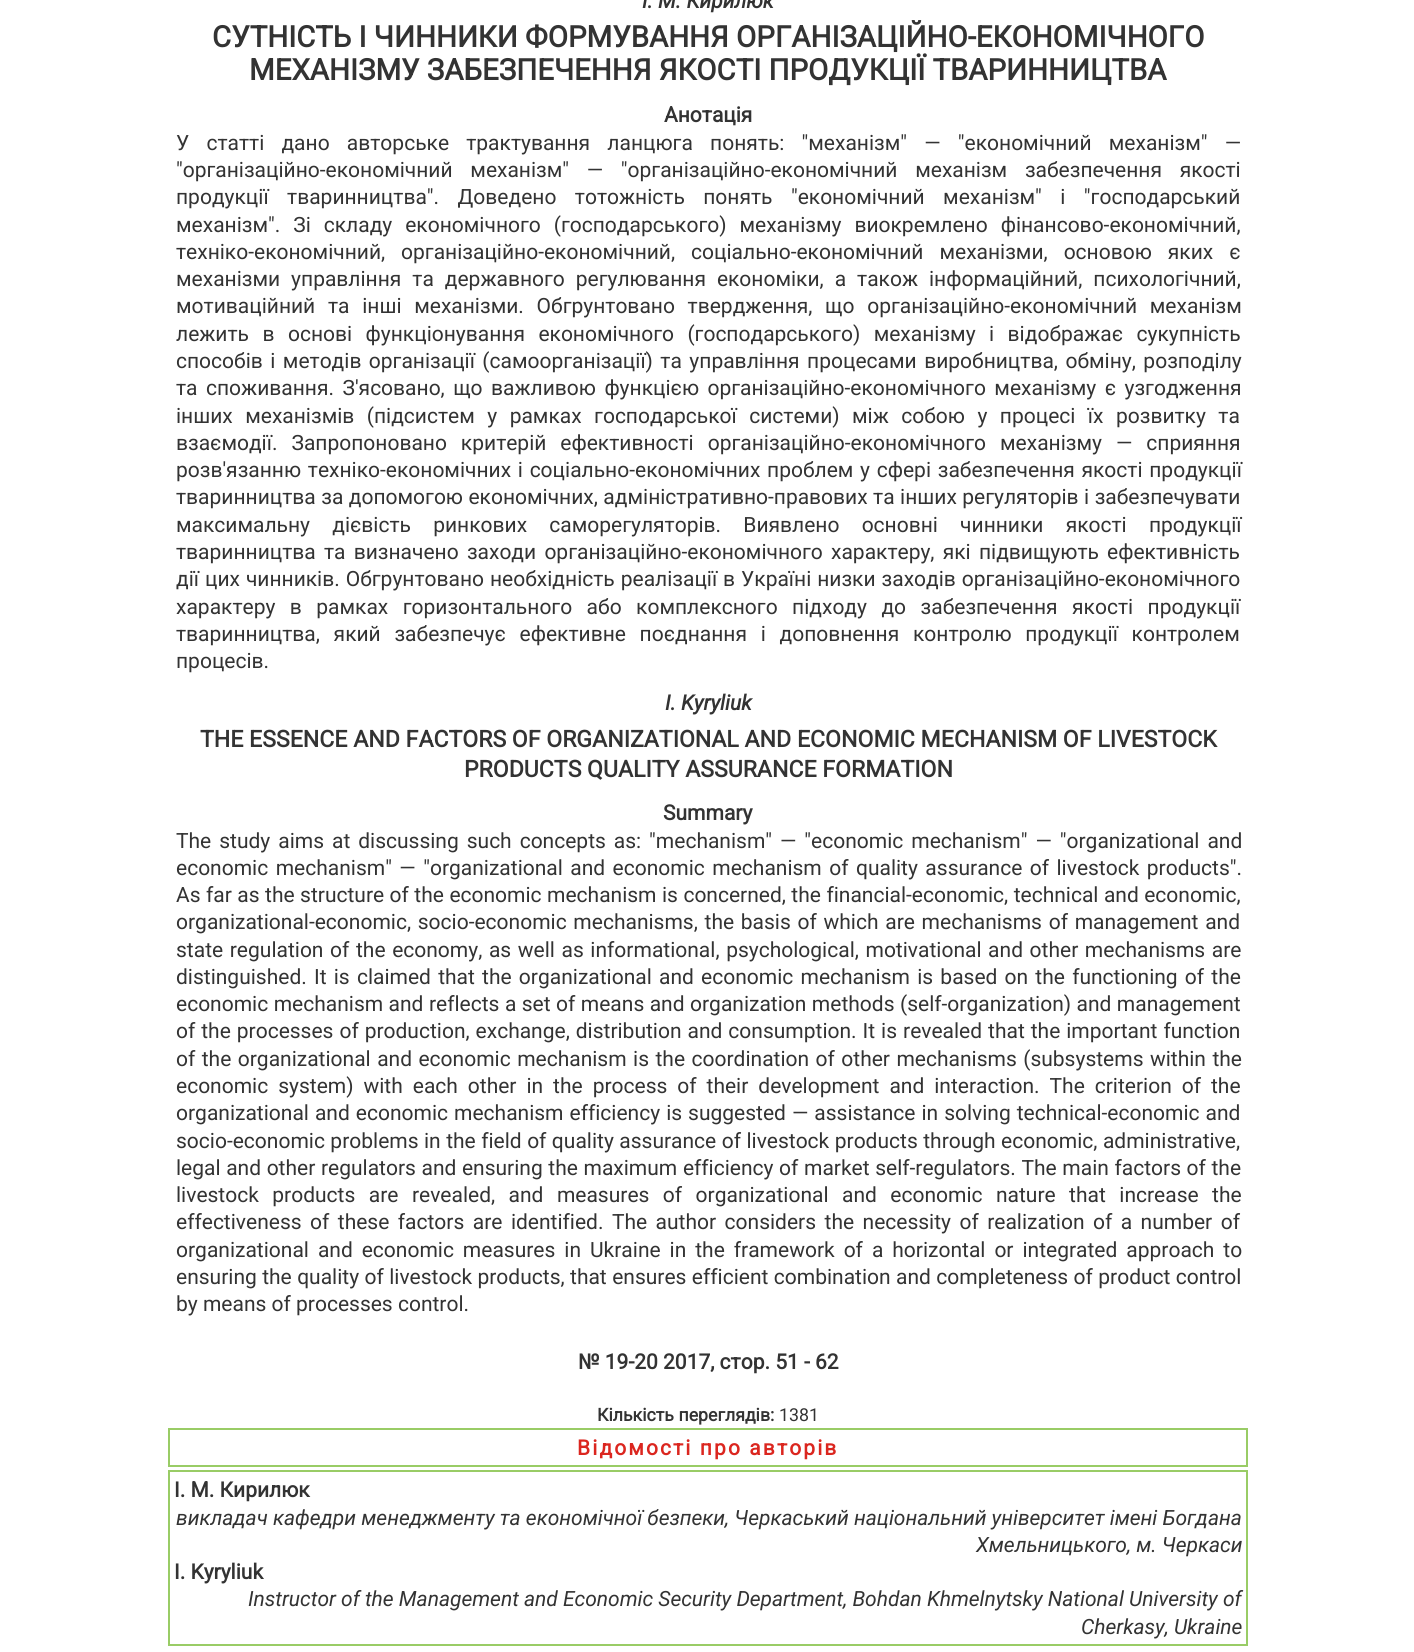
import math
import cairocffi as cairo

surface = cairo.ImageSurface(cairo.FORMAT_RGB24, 1414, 1652)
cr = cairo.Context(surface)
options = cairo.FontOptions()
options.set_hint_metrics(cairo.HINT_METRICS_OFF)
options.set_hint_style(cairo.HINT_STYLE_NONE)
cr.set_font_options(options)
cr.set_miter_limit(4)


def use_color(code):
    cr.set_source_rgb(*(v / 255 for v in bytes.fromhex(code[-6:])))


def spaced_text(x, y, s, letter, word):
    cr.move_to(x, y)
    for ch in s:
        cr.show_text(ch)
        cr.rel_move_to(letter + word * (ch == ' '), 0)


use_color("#ffffff")
cr.paint()
cr.select_font_face("Roboto", cairo.FONT_SLANT_ITALIC, cairo.FONT_WEIGHT_BOLD)
cr.set_font_size(21)
use_color("#333333")
cr.move_to(642, 8)
cr.show_text("І. М. Кирилюк")
cr.select_font_face("Roboto", cairo.FONT_SLANT_NORMAL, cairo.FONT_WEIGHT_BOLD)
cr.set_font_size(29.4)
cr.move_to(212, 47)
cr.show_text("СУТНІСТЬ І ЧИННИКИ ФОРМУВАННЯ ОРГАНІЗАЦІЙНО-ЕКОНОМІЧНОГО")
cr.move_to(249, 80)
cr.show_text("МЕХАНІЗМУ ЗАБЕЗПЕЧЕННЯ ЯКОСТІ ПРОДУКЦІЇ ТВАРИННИЦТВА")
cr.set_font_size(21)
cr.move_to(664, 122)
cr.show_text("Анотація")
cr.select_font_face("Roboto")
spaced_text(176, 150, "У статті дано авторське трактування ланцюга понять: \"механізм\" — \"економічний механізм\" —", 0, 12)
spaced_text(176, 177, "\"організаційно-економічний механізм\" — \"організаційно-економічний механізм забезпечення якості", 0, 12.5)
spaced_text(176, 204, "продукції тваринництва\". Доведено тотожність понять \"економічний механізм\" і \"господарський", 0, 13.25)
spaced_text(176, 232, "механізм\". Зі складу економічного (господарського) механізму виокремлено фінансово-економічний,", 0, 7.75)
spaced_text(176, 259, "техніко-економічний, організаційно-економічний, соціально-економічний механізми, основою яких є", 0, 10.75)
spaced_text(176, 286, "механізми управління та державного регулювання економіки, а також інформаційний, психологічний,", 0, 5.75)
spaced_text(176, 313, "мотиваційний та інші механізми. Обгрунтовано твердження, що організаційно-економічний механізм", 0, 7.5)
spaced_text(176, 341, "лежить в основі функціонування економічного (господарського) механізму і відображає сукупність", 0, 8.25)
spaced_text(176, 368, "способів і методів організації (самоорганізації) та управління процесами виробництва, обміну, розподілу", 0, 2.25)
spaced_text(176, 395, "та споживання. З'ясовано, що важливою функцією організаційно-економічного механізму є узгодження", 0, 3.25)
spaced_text(176, 423, "інших механізмів (підсистем у рамках господарської системи) між собою у процесі їх розвитку та", 0, 7.25)
spaced_text(176, 450, "взаємодії. Запропоновано критерій ефективності організаційно-економічного механізму — сприяння", 0, 8.75)
spaced_text(176, 477, "розв'язанню техніко-економічних і соціально-економічних проблем у сфері забезпечення якості продукції", 0, 1.5)
spaced_text(176, 504, "тваринництва за допомогою економічних, адміністративно-правових та інших регуляторів і забезпечувати", 0, 0.25)
spaced_text(176, 532, "максимальну дієвість ринкових саморегуляторів. Виявлено основні чинники якості продукції", 0, 17)
spaced_text(176, 559, "тваринництва та визначено заходи організаційно-економічного характеру, які підвищують ефективність", 0, 3)
spaced_text(176, 586, "дії цих чинників. Обгрунтовано необхідність реалізації в Україні низки заходів організаційно-економічного", 0, 0.75)
spaced_text(176, 614, "характеру в рамках горизонтального або комплексного підходу до забезпечення якості продукції", 0, 9.25)
spaced_text(176, 641, "тваринництва, який забезпечує ефективне поєднання і доповнення контролю продукції контролем", 0, 8.5)
cr.move_to(176, 668)
cr.show_text("процесів.")
cr.select_font_face("Roboto", cairo.FONT_SLANT_ITALIC, cairo.FONT_WEIGHT_BOLD)
cr.move_to(665, 710)
cr.show_text("I. Kyryliuk")
cr.select_font_face("Roboto", cairo.FONT_SLANT_NORMAL, cairo.FONT_WEIGHT_BOLD)
cr.set_font_size(23.1)
cr.move_to(200, 747)
cr.show_text("THE ESSENCE AND FACTORS OF ORGANIZATIONAL AND ECONOMIC MECHANISM OF LIVESTOCK")
cr.move_to(464, 777)
cr.show_text("PRODUCTS QUALITY ASSURANCE FORMATION")
cr.set_font_size(21)
cr.move_to(663, 820)
cr.show_text("Summary")
cr.select_font_face("Roboto")
spaced_text(176, 848, "The study aims at discussing such concepts as: \"mechanism\" — \"economic mechanism\" — \"organizational and", 0, 2.75)
spaced_text(176, 875, "economic mechanism\" — \"organizational and economic mechanism of quality assurance of livestock products\".", 0, 2.25)
spaced_text(176, 902, "As far as the structure of the economic mechanism is concerned, the financial-economic, technical and economic,", 0, 0.25)
spaced_text(176, 929, "organizational-economic, socio-economic mechanisms, the basis of which are mechanisms of management and", 0, 1.5)
spaced_text(176, 957, "state regulation of the economy, as well as informational, psychological, motivational and other mechanisms are", 0, 1.4)
spaced_text(176, 984, "distinguished. It is claimed that the organizational and economic mechanism is based on the functioning of the", 0, 2)
spaced_text(176, 1011, "economic mechanism and reflects a set of means and organization methods (self-organization) and management", 0, 0.25)
spaced_text(176, 1038, "of the processes of production, exchange, distribution and consumption. It is revealed that the important function", 0, 0.75)
spaced_text(176, 1066, "of the organizational and economic mechanism is the coordination of other mechanisms (subsystems within the", 0, 1.25)
spaced_text(176, 1093, "economic system) with each other in the process of their development and interaction. The criterion of the", 0, 4.75)
spaced_text(176, 1120, "organizational and economic mechanism efficiency is suggested — assistance in solving technical-economic and", 0, 0.8)
spaced_text(176, 1148, "socio-economic problems in the field of quality assurance of livestock products through economic, administrative,", 0, 0.25)
spaced_text(176, 1175, "legal and other regulators and ensuring the maximum efficiency of market self-regulators. The main factors of the", 0, 0.4)
spaced_text(176, 1202, "livestock products are revealed, and measures of organizational and economic nature that increase the", 0, 8.25)
spaced_text(176, 1229, "effectiveness of these factors are identified. The author considers the necessity of realization of a number of", 0, 3.25)
spaced_text(176, 1257, "organizational and economic measures in Ukraine in the framework of a horizontal or integrated approach to", 0, 3.75)
spaced_text(176, 1284, "ensuring the quality of livestock products, that ensures efficient combination and completeness of product control", 0, 0.2)
cr.move_to(176, 1311)
cr.show_text("by means of processes control.")
cr.select_font_face("Roboto", cairo.FONT_SLANT_NORMAL, cairo.FONT_WEIGHT_BOLD)
cr.move_to(578, 1369)
cr.show_text("№ 19-20 2017, стор. 51 - 62")
cr.set_font_size(17.75)
cr.move_to(597, 1421)
cr.show_text("Кількість переглядів:")
cr.select_font_face("Roboto")
cr.move_to(779, 1421)
cr.show_text("1381")
cr.rectangle(169, 1429, 1078, 37)
use_color("#99cc66")
cr.stroke()
cr.select_font_face("Roboto", cairo.FONT_SLANT_NORMAL, cairo.FONT_WEIGHT_BOLD)
cr.set_font_size(21)
use_color("#db261f")
spaced_text(577, 1455, "Відомості про авторів", 2.1, 0)
cr.rectangle(169, 1471, 1078, 174)
use_color("#99cc66")
cr.stroke()
use_color("#333333")
cr.move_to(174, 1497)
cr.show_text("І. М. Кирилюк")
cr.select_font_face("Roboto", cairo.FONT_SLANT_ITALIC)
cr.move_to(176, 1525)
cr.show_text("викладач кафедри менеджменту та економічної безпеки, Черкаський національний університет імені Богдана")
cr.move_to(976, 1552)
cr.show_text("Хмельницького, м. Черкаси")
cr.select_font_face("Roboto", cairo.FONT_SLANT_NORMAL, cairo.FONT_WEIGHT_BOLD)
cr.move_to(174, 1579)
cr.show_text("I. Kyryliuk")
cr.select_font_face("Roboto", cairo.FONT_SLANT_ITALIC)
cr.move_to(248, 1606)
cr.show_text("Instructor of the Management and Economic Security Department, Bohdan Khmelnytsky National University of")
cr.move_to(1081, 1634)
cr.show_text("Cherkasy, Ukraine")
surface.write_to_png("result.png")
